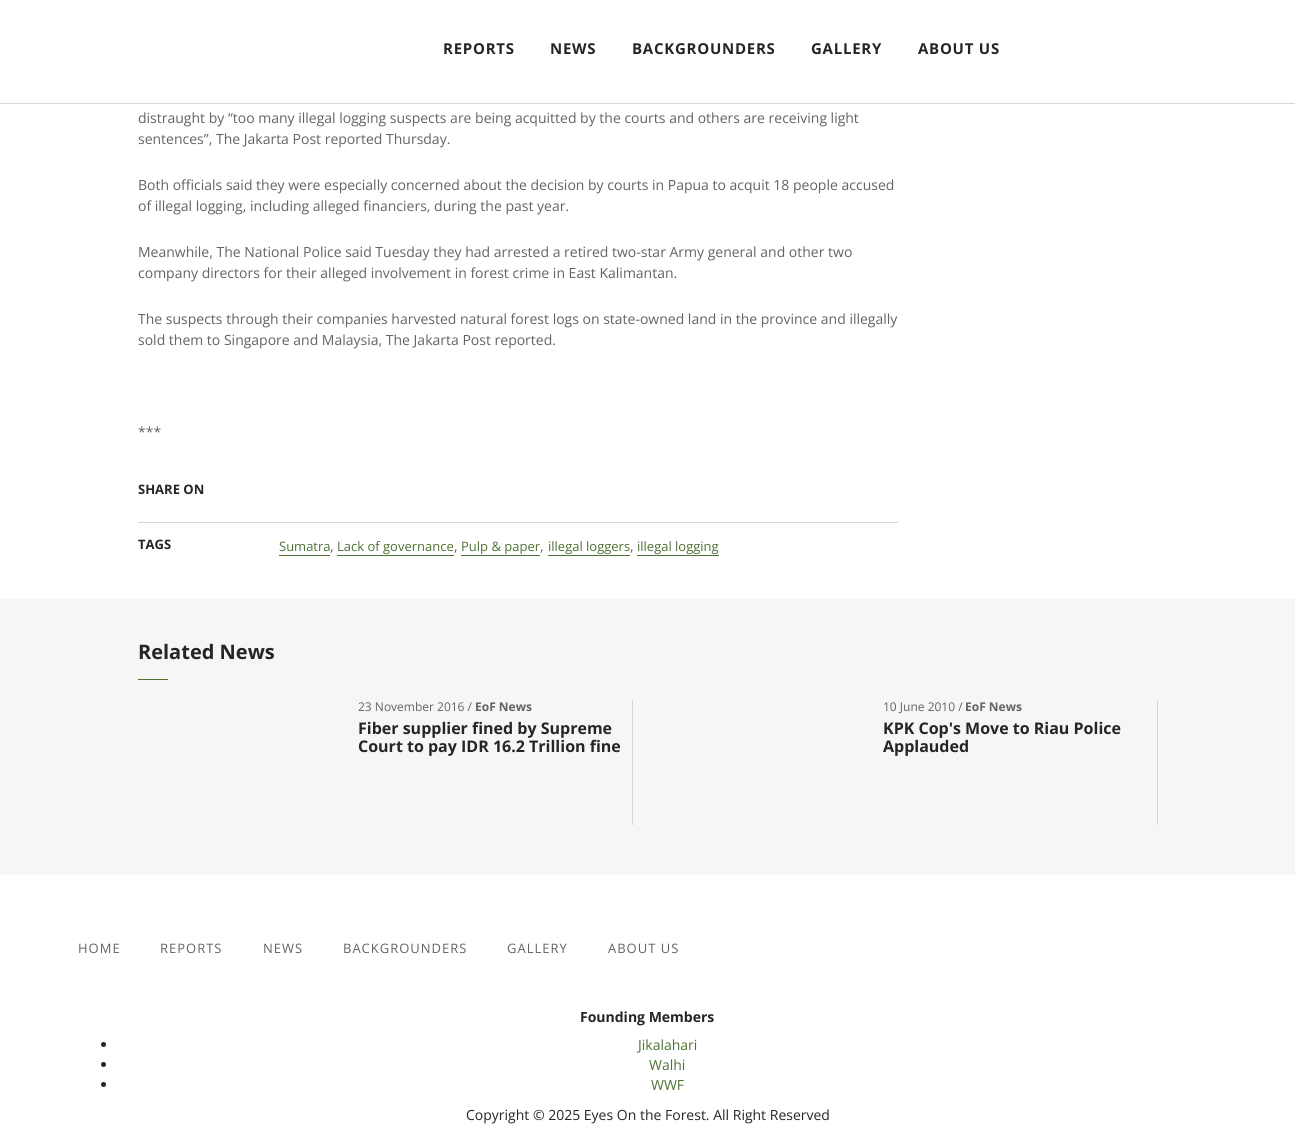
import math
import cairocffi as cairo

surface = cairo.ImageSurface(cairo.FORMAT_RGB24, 1295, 1139)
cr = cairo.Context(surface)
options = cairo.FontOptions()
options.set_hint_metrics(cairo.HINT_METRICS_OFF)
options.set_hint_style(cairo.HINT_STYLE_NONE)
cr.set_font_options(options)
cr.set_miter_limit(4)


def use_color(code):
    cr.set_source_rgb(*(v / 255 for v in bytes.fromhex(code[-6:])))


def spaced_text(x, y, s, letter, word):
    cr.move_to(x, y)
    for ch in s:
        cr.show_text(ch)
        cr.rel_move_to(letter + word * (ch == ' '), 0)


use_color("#ffffff")
cr.paint()
use_color("#d7d7d7")
cr.rectangle(0, 103, 1295, 1)
cr.fill()
cr.select_font_face("Open Sans", cairo.FONT_SLANT_NORMAL, cairo.FONT_WEIGHT_BOLD)
cr.set_font_size(15)
use_color("#252525")
spaced_text(443, 54, "REPORTS", 0.75, 0)
spaced_text(550, 54, "NEWS", 0.75, 0)
spaced_text(632, 54, "BACKGROUNDERS", 0.75, 0)
spaced_text(811, 54, "GALLERY", 0.75, 0)
spaced_text(918, 54, "ABOUT US", 0.75, 0)
cr.select_font_face("Open Sans")
cr.set_font_size(14)
use_color("#636363")
cr.move_to(138, 123)
cr.show_text("distraught by “too many illegal logging suspects are being acquitted by the courts and others are receiving light")
cr.move_to(138, 144)
cr.show_text("sentences”, The Jakarta Post reported Thursday.")
cr.move_to(138, 190)
cr.show_text("Both officials said they were especially concerned about the decision by courts in Papua to acquit 18 people accused")
cr.move_to(138, 211)
cr.show_text("of illegal logging, including alleged financiers, during the past year.")
cr.move_to(138, 257)
cr.show_text("Meanwhile, The National Police said Tuesday they had arrested a retired two-star Army general and other two")
cr.move_to(138, 278)
cr.show_text("company directors for their alleged involvement in forest crime in East Kalimantan.")
cr.move_to(138, 324)
cr.show_text("The suspects through their companies harvested natural forest logs on state-owned land in the province and illegally")
cr.move_to(138, 345)
cr.show_text("sold them to Singapore and Malaysia, The Jakarta Post reported.")
cr.move_to(138, 437)
cr.show_text("***")
cr.select_font_face("Open Sans", cairo.FONT_SLANT_NORMAL, cairo.FONT_WEIGHT_BOLD)
cr.set_font_size(13)
use_color("#252525")
cr.move_to(138, 494)
cr.show_text("SHARE ON")
use_color("#d7d7d7")
cr.rectangle(138, 522, 760, 1)
cr.fill()
use_color("#252525")
cr.move_to(138, 549)
cr.show_text("TAGS")
cr.select_font_face("Open Sans")
use_color("#4e7235")
cr.move_to(279, 551)
cr.show_text("Sumatra")
cr.rectangle(279, 555, 51, 1)
cr.fill()
cr.set_font_size(14)
use_color("#636363")
cr.move_to(330, 551)
cr.show_text(",")
cr.set_font_size(13)
use_color("#4e7235")
cr.move_to(337, 551)
cr.show_text("Lack of governance")
cr.rectangle(337, 555, 117, 1)
cr.fill()
cr.set_font_size(14)
use_color("#636363")
cr.move_to(454, 551)
cr.show_text(",")
cr.set_font_size(13)
use_color("#4e7235")
cr.move_to(461, 551)
cr.show_text("Pulp & paper")
cr.rectangle(461, 555, 79, 1)
cr.fill()
cr.set_font_size(14)
use_color("#636363")
cr.move_to(540, 551)
cr.show_text(",")
cr.set_font_size(13)
use_color("#4e7235")
cr.move_to(548, 551)
cr.show_text("illegal loggers")
cr.rectangle(548, 555, 82, 1)
cr.fill()
cr.set_font_size(14)
use_color("#636363")
cr.move_to(630, 551)
cr.show_text(",")
cr.set_font_size(13)
use_color("#4e7235")
cr.move_to(637, 551)
cr.show_text("illegal logging")
cr.rectangle(637, 555, 82, 1)
cr.fill()
use_color("#f6f6f6")
cr.rectangle(0, 599, 1295, 276)
cr.fill()
cr.select_font_face("Open Sans", cairo.FONT_SLANT_NORMAL, cairo.FONT_WEIGHT_BOLD)
cr.set_font_size(20)
use_color("#252525")
cr.move_to(138, 659)
cr.show_text("Related News")
use_color("#4e7235")
cr.rectangle(138, 679, 30, 1)
cr.fill()
use_color("#d7d7d7")
cr.rectangle(632, 700, 1, 125)
cr.fill()
cr.select_font_face("Open Sans")
cr.set_font_size(12)
use_color("#636363")
cr.move_to(358, 711)
cr.show_text("23 November 2016 /")
cr.select_font_face("Open Sans", cairo.FONT_SLANT_NORMAL, cairo.FONT_WEIGHT_BOLD)
cr.move_to(475, 711)
cr.show_text("EoF News")
cr.set_font_size(16)
use_color("#252525")
cr.move_to(358, 734)
cr.show_text("Fiber supplier fined by Supreme")
cr.move_to(358, 752)
cr.show_text("Court to pay IDR 16.2 Trillion fine")
use_color("#d7d7d7")
cr.rectangle(1157, 700, 1, 125)
cr.fill()
cr.select_font_face("Open Sans")
cr.set_font_size(12)
use_color("#636363")
cr.move_to(883, 711)
cr.show_text("10 June 2010 /")
cr.select_font_face("Open Sans", cairo.FONT_SLANT_NORMAL, cairo.FONT_WEIGHT_BOLD)
cr.move_to(965, 711)
cr.show_text("EoF News")
cr.set_font_size(16)
use_color("#252525")
cr.move_to(883, 734)
cr.show_text("KPK Cop's Move to Riau Police")
cr.move_to(883, 752)
cr.show_text("Applauded")
cr.select_font_face("Open Sans")
cr.set_font_size(13)
use_color("#636363")
spaced_text(78, 953, "HOME", 1, 0)
spaced_text(160, 953, "REPORTS", 1, 0)
spaced_text(263, 953, "NEWS", 1, 0)
spaced_text(343, 953, "BACKGROUNDERS", 1, 0)
spaced_text(507, 953, "GALLERY", 1, 0)
spaced_text(608, 953, "ABOUT US", 1, 0)
cr.select_font_face("Open Sans", cairo.FONT_SLANT_NORMAL, cairo.FONT_WEIGHT_BOLD)
cr.set_font_size(14)
use_color("#252525")
cr.move_to(580, 1022)
cr.show_text("Founding Members")
cr.new_path()
cr.arc(103.5, 1044.5, 2.5, 0, 2 * math.pi)
cr.fill()
cr.select_font_face("Open Sans")
use_color("#4e7235")
cr.move_to(638, 1050)
cr.show_text("Jikalahari")
use_color("#252525")
cr.new_path()
cr.arc(103.5, 1064.5, 2.5, 0, 2 * math.pi)
cr.fill()
use_color("#4e7235")
cr.move_to(649, 1070)
cr.show_text("Walhi")
use_color("#252525")
cr.new_path()
cr.arc(103.5, 1084.5, 2.5, 0, 2 * math.pi)
cr.fill()
use_color("#4e7235")
cr.move_to(651, 1090)
cr.show_text("WWF")
use_color("#252525")
cr.move_to(466, 1120)
cr.show_text("Copyright © 2025 Eyes On the Forest. All Right Reserved")
surface.write_to_png("result.png")
